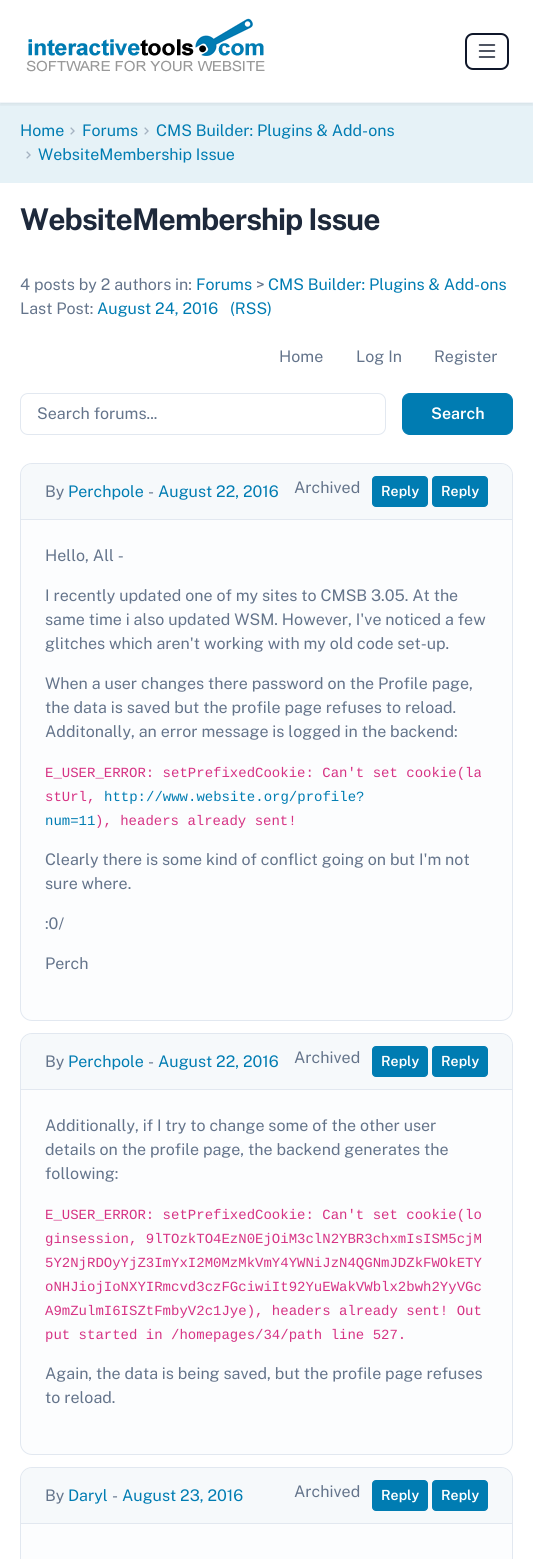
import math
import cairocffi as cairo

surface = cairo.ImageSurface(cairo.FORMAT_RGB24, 533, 1559)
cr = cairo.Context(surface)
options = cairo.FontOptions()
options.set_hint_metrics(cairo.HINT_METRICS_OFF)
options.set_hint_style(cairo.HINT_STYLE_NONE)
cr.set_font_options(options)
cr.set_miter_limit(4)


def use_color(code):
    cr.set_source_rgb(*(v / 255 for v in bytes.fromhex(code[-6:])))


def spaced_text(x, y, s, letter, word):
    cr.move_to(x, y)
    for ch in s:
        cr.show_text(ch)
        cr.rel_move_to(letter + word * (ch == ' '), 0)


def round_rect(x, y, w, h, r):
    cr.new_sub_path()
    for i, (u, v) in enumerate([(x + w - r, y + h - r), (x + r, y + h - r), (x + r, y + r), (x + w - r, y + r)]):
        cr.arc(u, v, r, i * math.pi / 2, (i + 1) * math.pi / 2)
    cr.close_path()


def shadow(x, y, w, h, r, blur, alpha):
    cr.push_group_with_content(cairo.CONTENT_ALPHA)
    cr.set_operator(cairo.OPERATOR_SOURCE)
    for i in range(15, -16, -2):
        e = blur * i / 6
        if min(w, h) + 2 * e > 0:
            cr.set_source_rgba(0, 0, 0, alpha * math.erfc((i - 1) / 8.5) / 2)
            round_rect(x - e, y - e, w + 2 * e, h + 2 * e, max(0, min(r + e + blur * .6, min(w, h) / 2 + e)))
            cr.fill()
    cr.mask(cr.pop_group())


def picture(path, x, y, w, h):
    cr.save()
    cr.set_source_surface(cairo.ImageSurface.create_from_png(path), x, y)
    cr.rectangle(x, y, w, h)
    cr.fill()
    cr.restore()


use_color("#ffffff")
cr.paint()
use_color("#e6f2f7")
cr.rectangle(0, 103, 533, 80)
cr.fill()
cr.save()
cr.rectangle(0, 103, 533, 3)
cr.clip()
use_color("#020617")
shadow(0, 2, 533, 103, 0, 2, 0.07)
cr.restore()
use_color("#f1f5f9")
cr.rectangle(0, 102, 533, 1)
cr.fill()
picture("img1.png", 26, 18, 239, 54)
round_rect(466, 34, 42, 35, 7)
use_color("#0f172a")
cr.stroke()
picture("img2.png", 478, 44, 18, 14)
cr.select_font_face("Public Sans")
cr.set_font_size(16)
use_color("#007cb2")
cr.move_to(20, 136)
cr.show_text("Home")
picture("img3.png", 70, 127, 5, 8)
cr.move_to(82, 136)
cr.show_text("Forums")
picture("img3.png", 144, 127, 5, 8)
cr.move_to(156, 136)
cr.show_text("CMS Builder: Plugins & Add-ons")
picture("img3.png", 26, 151, 5, 8)
cr.move_to(38, 160)
cr.show_text("WebsiteMembership Issue")
cr.select_font_face("Public Sans", cairo.FONT_SLANT_NORMAL, cairo.FONT_WEIGHT_BOLD)
cr.set_font_size(30)
use_color("#1e293b")
spaced_text(20, 230, "WebsiteMembership Issue", -0.9, 0)
cr.select_font_face("Public Sans")
cr.set_font_size(16)
use_color("#64748b")
cr.move_to(20, 290)
cr.show_text("4 posts by 2 authors in:")
use_color("#007cb2")
cr.move_to(196, 290)
cr.show_text("Forums")
use_color("#64748b")
cr.move_to(256, 290)
cr.show_text(">")
use_color("#007cb2")
cr.move_to(268, 290)
cr.show_text("CMS Builder: Plugins & Add-ons")
use_color("#64748b")
cr.move_to(20, 314)
cr.show_text("Last Post:")
use_color("#007cb2")
cr.move_to(97, 314)
cr.show_text("August 24, 2016")
cr.move_to(230, 314)
cr.show_text("(RSS)")
use_color("#64748b")
cr.move_to(279, 362)
cr.show_text("Home")
cr.move_to(356, 362)
cr.show_text("Log In")
cr.move_to(434, 362)
cr.show_text("Register")
round_rect(20.5, 393.5, 365, 41, 7.5)
use_color("#e2e8f0")
cr.set_line_width(1)
cr.stroke()
use_color("#64748b")
cr.move_to(37, 419)
cr.show_text("Search forums...")
use_color("#007cb2")
round_rect(402.5, 393.5, 110, 41, 7.5)
cr.fill_preserve()
cr.stroke()
cr.select_font_face("Public Sans SemiBold")
use_color("#ffffff")
cr.move_to(431, 419)
cr.show_text("Search")
use_color("#fcfdfe")
round_rect(20.5, 463.5, 492, 557, 11.5)
cr.fill_preserve()
use_color("#e2e8f0")
cr.stroke()
cr.set_source_rgba(0.945, 0.961, 0.976, 0.5)
cr.new_path()
cr.move_to(32, 464)
cr.line_to(501, 464)
cr.curve_to(507, 464, 512, 469, 512, 475)
cr.line_to(512, 520)
cr.line_to(21, 520)
cr.line_to(21, 475)
cr.curve_to(21, 469, 26, 464, 32, 464)
cr.close_path()
cr.fill()
use_color("#e2e8f0")
cr.rectangle(21, 519, 491, 1)
cr.fill()
cr.select_font_face("Public Sans")
use_color("#64748b")
cr.move_to(45, 497)
cr.show_text("By")
use_color("#007cb2")
cr.move_to(68, 497)
cr.show_text("Perchpole")
use_color("#64748b")
cr.move_to(148, 497)
cr.show_text("-")
use_color("#007cb2")
cr.move_to(158, 497)
cr.show_text("August 22, 2016")
use_color("#64748b")
cr.move_to(294, 493)
cr.show_text("Archived")
use_color("#007cb2")
round_rect(372.5, 476.5, 55, 30, 3.5)
cr.fill_preserve()
cr.stroke()
cr.select_font_face("Public Sans SemiBold")
cr.set_font_size(14)
use_color("#ffffff")
cr.move_to(381, 496)
cr.show_text("Reply")
use_color("#007cb2")
round_rect(432.5, 476.5, 55, 30, 3.5)
cr.fill_preserve()
cr.stroke()
use_color("#ffffff")
cr.move_to(441, 496)
cr.show_text("Reply")
cr.select_font_face("Public Sans")
cr.set_font_size(16)
use_color("#64748b")
cr.move_to(45, 561)
cr.show_text("Hello, All -")
cr.move_to(45, 601)
cr.show_text("I recently updated one of my sites to CMSB 3.05. At the")
cr.move_to(45, 625)
cr.show_text("same time i also updated WSM. However, I've noticed a few")
cr.move_to(45, 649)
cr.show_text("glitches which aren't working with my old code set-up.")
cr.move_to(45, 689)
cr.show_text("When a user changes there password on the Profile page,")
cr.move_to(45, 713)
cr.show_text("the data is saved but the profile page refuses to reload.")
cr.move_to(45, 737)
cr.show_text("Additonally, an error message is logged in the backend:")
cr.select_font_face("Liberation Mono")
cr.set_font_size(14)
use_color("#d63384")
cr.move_to(45, 777)
cr.show_text("E_USER_ERROR: setPrefixedCookie: Can't set cookie(la")
cr.move_to(45, 801)
cr.show_text("stUrl,")
use_color("#007cb2")
cr.move_to(104, 801)
cr.show_text("http://www.website.org/profile?")
cr.move_to(45, 825)
cr.show_text("num=11")
use_color("#d63384")
cr.move_to(95, 825)
cr.show_text("), headers already sent!")
cr.select_font_face("Public Sans")
cr.set_font_size(16)
use_color("#64748b")
cr.move_to(45, 865)
cr.show_text("Clearly there is some kind of conflict going on but I'm not")
cr.move_to(45, 889)
cr.show_text("sure where.")
cr.move_to(45, 929)
cr.show_text(":0/")
cr.move_to(45, 969)
cr.show_text("Perch")
use_color("#fcfdfe")
round_rect(20.5, 1033.5, 492, 421, 11.5)
cr.fill_preserve()
use_color("#e2e8f0")
cr.stroke()
cr.set_source_rgba(0.945, 0.961, 0.976, 0.5)
cr.new_path()
cr.move_to(32, 1034)
cr.line_to(501, 1034)
cr.curve_to(507, 1034, 512, 1039, 512, 1045)
cr.line_to(512, 1090)
cr.line_to(21, 1090)
cr.line_to(21, 1045)
cr.curve_to(21, 1039, 26, 1034, 32, 1034)
cr.close_path()
cr.fill()
use_color("#e2e8f0")
cr.rectangle(21, 1089, 491, 1)
cr.fill()
use_color("#64748b")
cr.move_to(45, 1067)
cr.show_text("By")
use_color("#007cb2")
cr.move_to(68, 1067)
cr.show_text("Perchpole")
use_color("#64748b")
cr.move_to(148, 1067)
cr.show_text("-")
use_color("#007cb2")
cr.move_to(158, 1067)
cr.show_text("August 22, 2016")
use_color("#64748b")
cr.move_to(294, 1063)
cr.show_text("Archived")
use_color("#007cb2")
round_rect(372.5, 1046.5, 55, 30, 3.5)
cr.fill_preserve()
cr.stroke()
cr.select_font_face("Public Sans SemiBold")
cr.set_font_size(14)
use_color("#ffffff")
cr.move_to(381, 1066)
cr.show_text("Reply")
use_color("#007cb2")
round_rect(432.5, 1046.5, 55, 30, 3.5)
cr.fill_preserve()
cr.stroke()
use_color("#ffffff")
cr.move_to(441, 1066)
cr.show_text("Reply")
cr.select_font_face("Public Sans")
cr.set_font_size(16)
use_color("#64748b")
cr.move_to(45, 1131)
cr.show_text("Additionally, if I try to change some of the other user")
cr.move_to(45, 1155)
cr.show_text("details on the profile page, the backend generates the")
cr.move_to(45, 1179)
cr.show_text("following:")
cr.select_font_face("Liberation Mono")
cr.set_font_size(14)
use_color("#d63384")
cr.move_to(45, 1219)
cr.show_text("E_USER_ERROR: setPrefixedCookie: Can't set cookie(lo")
cr.move_to(45, 1243)
cr.show_text("ginsession, 9lTOzkTO4EzN0EjOiM3clN2YBR3chxmIsISM5cjM")
cr.move_to(45, 1267)
cr.show_text("5Y2NjRDOyYjZ3ImYxI2M0MzMkVmY4YWNiJzN4QGNmJDZkFWOkETY")
cr.move_to(45, 1291)
cr.show_text("oNHJiojIoNXYIRmcvd3czFGciwiIt92YuEWakVWblx2bwh2YyVGc")
cr.move_to(45, 1315)
cr.show_text("A9mZulmI6ISZtFmbyV2c1Jye), headers already sent! Out")
cr.move_to(45, 1339)
cr.show_text("put started in /homepages/34/path line 527.")
cr.select_font_face("Public Sans")
cr.set_font_size(16)
use_color("#64748b")
cr.move_to(45, 1379)
cr.show_text("Again, the data is being saved, but the profile page refuses")
cr.move_to(45, 1403)
cr.show_text("to reload.")
use_color("#fcfdfe")
round_rect(20.5, 1467.5, 492, 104, 11.5)
cr.fill_preserve()
use_color("#e2e8f0")
cr.stroke()
cr.set_source_rgba(0.945, 0.961, 0.976, 0.5)
cr.new_path()
cr.move_to(32, 1468)
cr.line_to(501, 1468)
cr.curve_to(507, 1468, 512, 1473, 512, 1479)
cr.line_to(512, 1524)
cr.line_to(21, 1524)
cr.line_to(21, 1479)
cr.curve_to(21, 1473, 26, 1468, 32, 1468)
cr.close_path()
cr.fill()
use_color("#e2e8f0")
cr.rectangle(21, 1523, 491, 1)
cr.fill()
use_color("#64748b")
cr.move_to(45, 1501)
cr.show_text("By")
use_color("#007cb2")
cr.move_to(68, 1501)
cr.show_text("Daryl")
use_color("#64748b")
cr.move_to(112, 1501)
cr.show_text("-")
use_color("#007cb2")
cr.move_to(122, 1501)
cr.show_text("August 23, 2016")
use_color("#64748b")
cr.move_to(294, 1497)
cr.show_text("Archived")
use_color("#007cb2")
round_rect(372.5, 1480.5, 55, 30, 3.5)
cr.fill_preserve()
cr.stroke()
cr.select_font_face("Public Sans SemiBold")
cr.set_font_size(14)
use_color("#ffffff")
cr.move_to(381, 1500)
cr.show_text("Reply")
use_color("#007cb2")
round_rect(432.5, 1480.5, 55, 30, 3.5)
cr.fill_preserve()
cr.stroke()
use_color("#ffffff")
cr.move_to(441, 1500)
cr.show_text("Reply")
surface.write_to_png("result.png")
